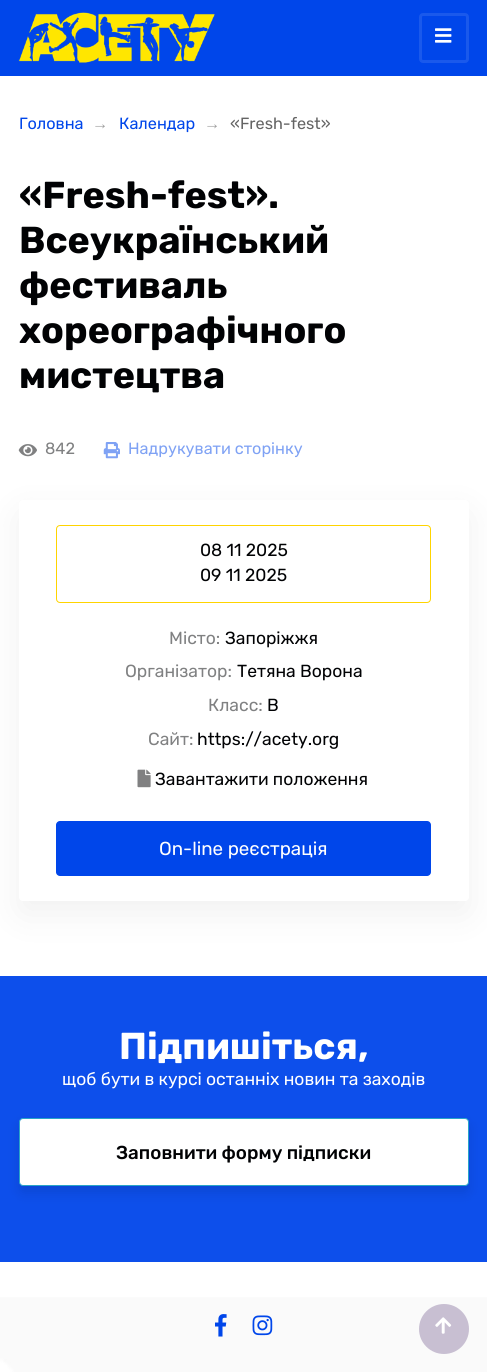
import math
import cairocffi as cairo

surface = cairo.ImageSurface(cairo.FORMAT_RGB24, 487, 1372)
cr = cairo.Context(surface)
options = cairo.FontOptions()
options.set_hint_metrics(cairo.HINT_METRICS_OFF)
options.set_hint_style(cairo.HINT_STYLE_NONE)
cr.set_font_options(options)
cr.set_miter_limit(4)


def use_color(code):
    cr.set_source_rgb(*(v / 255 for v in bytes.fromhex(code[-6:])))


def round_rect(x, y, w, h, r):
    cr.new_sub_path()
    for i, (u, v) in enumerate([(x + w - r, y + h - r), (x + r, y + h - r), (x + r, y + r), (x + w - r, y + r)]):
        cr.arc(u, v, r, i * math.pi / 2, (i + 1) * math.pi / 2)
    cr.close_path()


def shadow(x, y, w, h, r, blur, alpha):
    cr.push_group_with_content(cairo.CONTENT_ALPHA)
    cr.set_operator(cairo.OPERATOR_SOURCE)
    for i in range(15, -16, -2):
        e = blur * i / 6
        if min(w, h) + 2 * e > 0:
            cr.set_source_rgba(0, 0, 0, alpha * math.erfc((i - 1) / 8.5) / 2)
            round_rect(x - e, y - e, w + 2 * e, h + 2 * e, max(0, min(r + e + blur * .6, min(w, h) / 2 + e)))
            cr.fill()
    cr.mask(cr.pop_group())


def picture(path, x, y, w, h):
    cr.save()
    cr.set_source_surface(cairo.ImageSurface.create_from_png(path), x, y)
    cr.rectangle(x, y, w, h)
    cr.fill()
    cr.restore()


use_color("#ffffff")
cr.paint()
use_color("#0046ea")
cr.rectangle(0, 0, 487, 76)
cr.fill()
picture("img1.png", 18, 12, 197, 51)
round_rect(420.5, 14.5, 47, 47, 2.5)
use_color("#1a59ec")
cr.set_line_width(3)
cr.stroke()
picture("img2.png", 435, 28, 17, 15)
cr.select_font_face("Rubik")
cr.set_font_size(16.25)
use_color("#0046ea")
cr.move_to(19, 129)
cr.show_text("Головна")
cr.select_font_face("Liberation Sans")
use_color("#a2a2a2")
cr.move_to(92, 129)
cr.show_text("→")
cr.select_font_face("Rubik")
use_color("#0046ea")
cr.move_to(119, 129)
cr.show_text("Календар")
cr.select_font_face("Liberation Sans")
use_color("#a2a2a2")
cr.move_to(204, 129)
cr.show_text("→")
cr.select_font_face("Rubik")
use_color("#646464")
cr.move_to(230, 129)
cr.show_text("«Fresh-fest»")
cr.select_font_face("Rubik", cairo.FONT_SLANT_NORMAL, cairo.FONT_WEIGHT_BOLD)
cr.set_font_size(37.5)
use_color("#010204")
cr.move_to(19, 208)
cr.show_text("«Fresh-fest».")
cr.move_to(19, 253)
cr.show_text("Всеукраїнський")
cr.move_to(19, 298)
cr.show_text("фестиваль")
cr.move_to(19, 343)
cr.show_text("хореографічного")
cr.move_to(19, 388)
cr.show_text("мистецтва")
use_color("#010204")
shadow(19, 513, 450, 401, 4, 19, 0.06)
picture("img3.png", 18, 444, 19, 13)
cr.select_font_face("Rubik")
cr.set_font_size(16.25)
use_color("#808182")
cr.move_to(45, 454)
cr.show_text("842")
picture("img4.png", 103, 442, 17, 17)
use_color("#7fa2f4")
cr.move_to(128, 454)
cr.show_text("Надрукувати сторінку")
use_color("#ffffff")
round_rect(19, 500, 450, 401, 4)
cr.fill()
round_rect(56.5, 525.5, 374, 77, 3.5)
use_color("#ffd400")
cr.set_line_width(1)
cr.stroke()
cr.set_font_size(17.5)
use_color("#010204")
cr.move_to(200, 556)
cr.show_text("08 11 2025")
cr.move_to(200, 581)
cr.show_text("09 11 2025")
use_color("#808182")
cr.move_to(169, 644)
cr.show_text("Мiсто:")
use_color("#010204")
cr.move_to(225, 644)
cr.show_text("Запоріжжя")
use_color("#808182")
cr.move_to(125, 677)
cr.show_text("Органiзатор:")
use_color("#010204")
cr.move_to(237, 677)
cr.show_text("Тетяна Ворона")
use_color("#808182")
cr.move_to(208, 711)
cr.show_text("Класс:")
use_color("#010204")
cr.move_to(267, 711)
cr.show_text("В")
use_color("#808182")
cr.move_to(148, 745)
cr.show_text("Сайт:")
use_color("#010204")
cr.move_to(197, 745)
cr.show_text("https://acety.org")
picture("img5.png", 137, 769, 14, 19)
cr.move_to(155, 785)
cr.show_text("Завантажити положення")
use_color("#0046ea")
round_rect(56, 821, 375, 55, 4)
cr.fill()
cr.set_font_size(18.75)
use_color("#ffffff")
cr.move_to(159, 855)
cr.show_text("On-line реєстрація")
use_color("#0d4feb")
cr.rectangle(0, 976, 487, 286)
cr.fill()
cr.select_font_face("Rubik", cairo.FONT_SLANT_NORMAL, cairo.FONT_WEIGHT_BOLD)
cr.set_font_size(37.5)
use_color("#ffffff")
cr.move_to(119, 1059)
cr.show_text("Підпишіться,")
cr.select_font_face("Rubik")
cr.set_font_size(17.5)
cr.move_to(62, 1085)
cr.show_text("щоб бути в курсі останніх новин та заходів")
use_color("#000000")
shadow(19, 1124, 450, 69, 4, 6, 0.1)
use_color("#ffffff")
round_rect(19.5, 1118.5, 449, 67, 3.5)
cr.fill_preserve()
use_color("#28a4c9")
cr.stroke()
cr.select_font_face("Rubik Medium")
cr.set_font_size(18.75)
use_color("#010204")
cr.move_to(116, 1159)
cr.show_text("Заповнити форму пiдписки")
picture("img6.png", 0, 1297, 487, 75)
picture("img7.png", 215, 1314, 12, 23)
picture("img8.png", 252, 1315, 21, 21)
use_color("#c8bfd2")
cr.arc(444, 1329, 25, 0, 2 * math.pi)
cr.fill()
picture("img9.png", 435, 1317, 17, 17)
surface.write_to_png("result.png")
